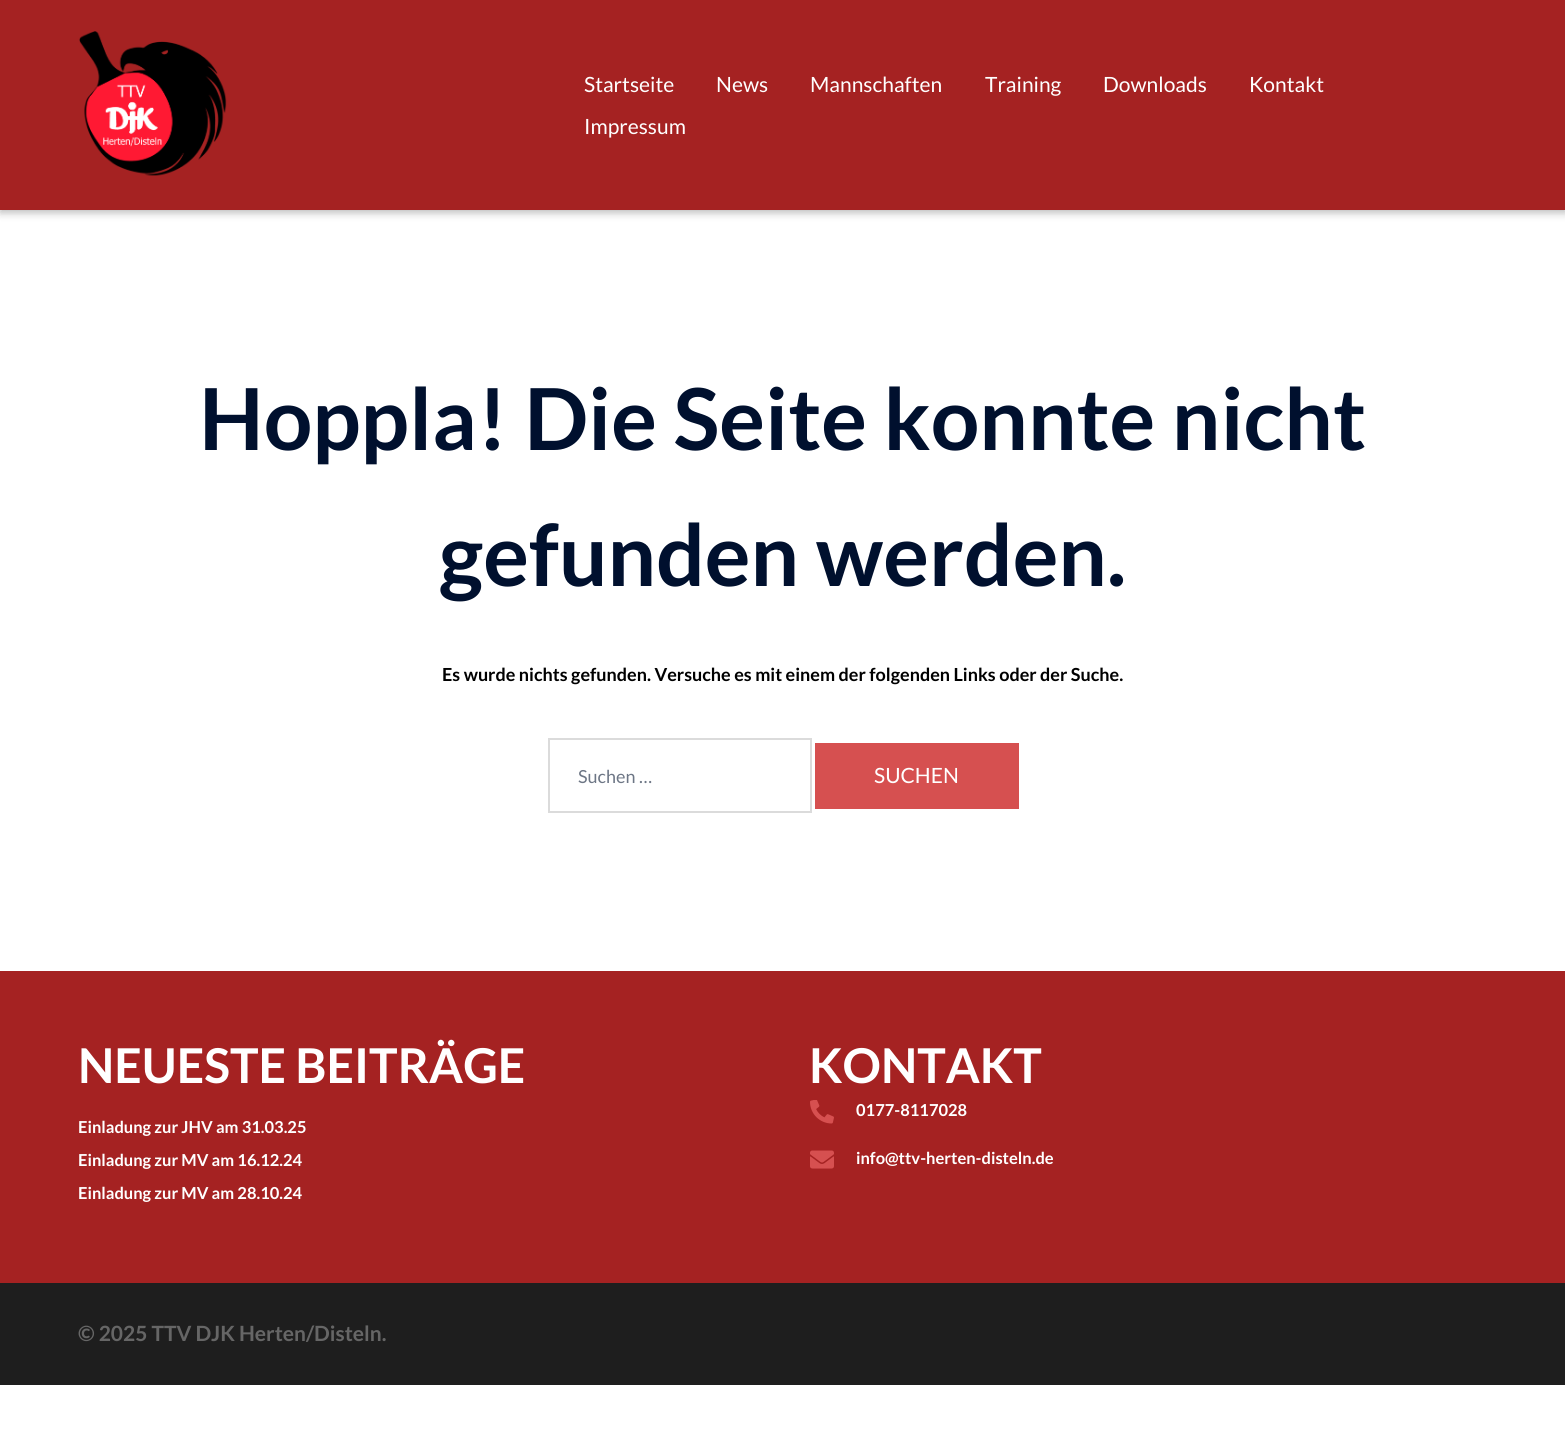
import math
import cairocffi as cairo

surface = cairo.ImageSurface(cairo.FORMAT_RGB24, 1565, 1433)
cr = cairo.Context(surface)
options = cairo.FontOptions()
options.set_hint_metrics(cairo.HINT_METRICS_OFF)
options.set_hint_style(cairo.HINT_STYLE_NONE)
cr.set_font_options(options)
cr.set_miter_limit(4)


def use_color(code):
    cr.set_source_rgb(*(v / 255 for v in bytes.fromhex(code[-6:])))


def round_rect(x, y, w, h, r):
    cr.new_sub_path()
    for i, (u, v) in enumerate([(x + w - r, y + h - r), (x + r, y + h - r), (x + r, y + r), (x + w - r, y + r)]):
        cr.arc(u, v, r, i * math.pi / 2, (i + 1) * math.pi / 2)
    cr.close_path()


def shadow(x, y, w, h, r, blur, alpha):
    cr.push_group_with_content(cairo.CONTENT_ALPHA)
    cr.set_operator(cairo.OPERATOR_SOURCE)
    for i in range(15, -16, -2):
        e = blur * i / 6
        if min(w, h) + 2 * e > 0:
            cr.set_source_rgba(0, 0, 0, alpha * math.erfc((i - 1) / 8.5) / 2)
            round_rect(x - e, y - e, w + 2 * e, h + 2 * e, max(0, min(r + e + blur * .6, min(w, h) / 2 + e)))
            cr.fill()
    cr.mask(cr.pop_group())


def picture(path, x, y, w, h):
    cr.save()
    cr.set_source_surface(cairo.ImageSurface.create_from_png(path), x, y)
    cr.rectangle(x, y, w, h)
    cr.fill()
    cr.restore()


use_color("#ffffff")
cr.paint()
use_color("#000000")
shadow(0, 3, 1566, 210, 0, 4, 0.26)
use_color("#a52222")
cr.rectangle(0, 0, 1565, 210)
cr.fill()
picture("img1.png", 79, 31, 148, 145)
cr.select_font_face("Lato")
cr.set_font_size(21)
use_color("#ffffff")
cr.move_to(584, 92)
cr.show_text("Startseite")
cr.move_to(716, 92)
cr.show_text("News")
cr.move_to(810, 92)
cr.show_text("Mannschaften")
cr.move_to(985, 92)
cr.show_text("Training")
cr.move_to(1103, 92)
cr.show_text("Downloads")
cr.move_to(1249, 92)
cr.show_text("Kontakt")
cr.move_to(584, 134)
cr.show_text("Impressum")
cr.select_font_face("Lato", cairo.FONT_SLANT_NORMAL, cairo.FONT_WEIGHT_BOLD)
cr.set_font_size(85.5)
use_color("#00102e")
cr.move_to(199, 450)
cr.show_text("Hoppla! Die Seite konnte nicht")
cr.move_to(439, 586)
cr.show_text("gefunden werden.")
cr.set_font_size(18)
use_color("#000000")
cr.move_to(442, 681)
cr.show_text("Es wurde nichts gefunden. Versuche es mit einem der folgenden Links oder der Suche.")
cr.rectangle(549, 739, 262, 73)
use_color("#dbdbdb")
cr.stroke()
cr.select_font_face("Lato")
use_color("#6d7685")
cr.move_to(578, 783)
cr.show_text("Suchen …")
use_color("#d65050")
cr.rectangle(815, 743, 204, 66)
cr.fill()
cr.set_font_size(21)
use_color("#ffffff")
cr.move_to(874, 783)
cr.show_text("SUCHEN")
use_color("#a52222")
cr.rectangle(0, 971, 1565, 312)
cr.fill()
cr.select_font_face("Lato", cairo.FONT_SLANT_NORMAL, cairo.FONT_WEIGHT_BOLD)
cr.set_font_size(48)
use_color("#ffffff")
cr.move_to(78, 1083)
cr.show_text("NEUESTE BEITRÄGE")
cr.set_font_size(16.5)
cr.move_to(78, 1133)
cr.show_text("Einladung zur JHV am 31.03.25")
cr.move_to(78, 1166)
cr.show_text("Einladung zur MV am 16.12.24")
cr.move_to(78, 1199)
cr.show_text("Einladung zur MV am 28.10.24")
cr.set_font_size(48)
cr.move_to(809, 1083)
cr.show_text("KONTAKT")
picture("img2.png", 810, 1100, 24, 24)
cr.set_font_size(16.5)
cr.move_to(856, 1116)
cr.show_text("0177-8117028")
picture("img3.png", 810, 1150, 24, 19)
cr.move_to(856, 1164)
cr.show_text("info@ttv-herten-disteln.de")
use_color("#1e1e1e")
cr.rectangle(0, 1283, 1565, 102)
cr.fill()
cr.set_font_size(21)
use_color("#666666")
cr.move_to(78, 1341)
cr.show_text("© 2025 TTV DJK Herten/Disteln.")
surface.write_to_png("result.png")
